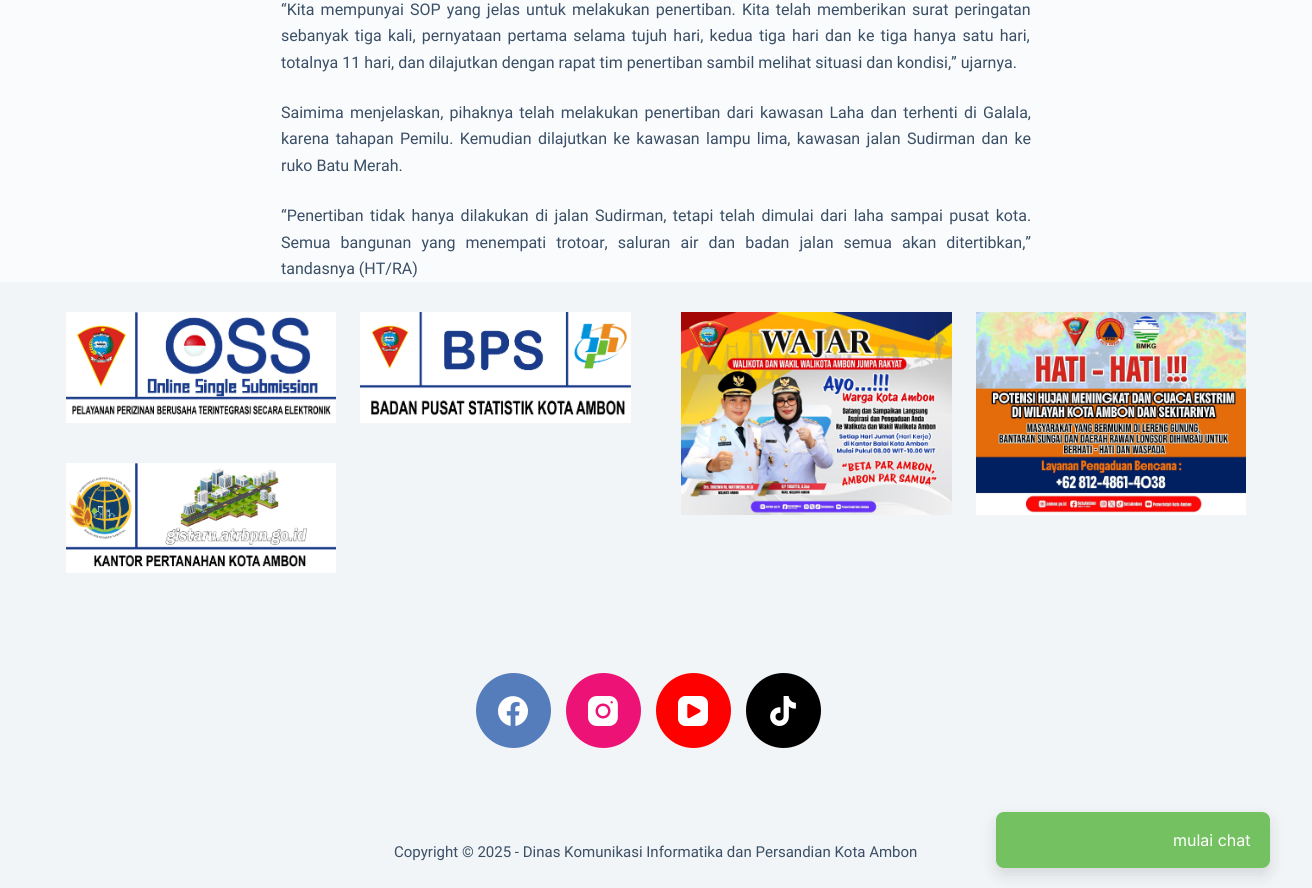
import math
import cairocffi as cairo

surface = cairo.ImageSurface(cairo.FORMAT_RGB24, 1312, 888)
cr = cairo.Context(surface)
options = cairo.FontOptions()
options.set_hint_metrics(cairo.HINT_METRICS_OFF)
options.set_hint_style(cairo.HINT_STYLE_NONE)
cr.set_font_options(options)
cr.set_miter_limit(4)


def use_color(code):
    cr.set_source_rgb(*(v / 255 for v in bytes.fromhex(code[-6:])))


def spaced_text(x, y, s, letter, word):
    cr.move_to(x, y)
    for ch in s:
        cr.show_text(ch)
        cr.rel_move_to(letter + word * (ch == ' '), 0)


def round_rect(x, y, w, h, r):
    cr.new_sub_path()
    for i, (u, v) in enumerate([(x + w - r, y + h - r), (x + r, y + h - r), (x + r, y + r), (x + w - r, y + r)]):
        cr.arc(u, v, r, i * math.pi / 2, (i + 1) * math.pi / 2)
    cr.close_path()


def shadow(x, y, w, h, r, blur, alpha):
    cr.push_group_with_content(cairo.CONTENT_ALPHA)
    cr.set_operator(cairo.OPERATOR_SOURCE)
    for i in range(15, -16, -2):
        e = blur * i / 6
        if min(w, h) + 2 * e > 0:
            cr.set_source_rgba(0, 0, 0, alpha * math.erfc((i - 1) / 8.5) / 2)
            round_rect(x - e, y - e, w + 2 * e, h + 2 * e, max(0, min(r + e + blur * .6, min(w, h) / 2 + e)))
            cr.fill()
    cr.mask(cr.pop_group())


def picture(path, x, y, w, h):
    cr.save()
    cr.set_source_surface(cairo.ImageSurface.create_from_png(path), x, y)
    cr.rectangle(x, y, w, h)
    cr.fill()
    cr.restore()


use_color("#fafbfc")
cr.paint()
cr.select_font_face("Roboto")
cr.set_font_size(16)
use_color("#3a4f66")
spaced_text(281, 15, "“Kita mempunyai SOP yang jelas untuk melakukan penertiban. Kita telah memberikan surat peringatan", 0, 2.1)
spaced_text(281, 41, "sebanyak tiga kali, pernyataan pertama selama tujuh hari, kedua tiga hari dan ke tiga hanya satu hari,", 0, 2.25)
cr.move_to(281, 68)
cr.show_text("totalnya 11 hari, dan dilajutkan dengan rapat tim penertiban sambil melihat situasi dan kondisi,” ujarnya.")
spaced_text(281, 118, "Saimima menjelaskan, pihaknya telah melakukan penertiban dari kawasan Laha dan terhenti di Galala,", 0, 2.25)
spaced_text(281, 144, "karena tahapan Pemilu. Kemudian dilajutkan ke kawasan lampu lima, kawasan jalan Sudirman dan ke", 0, 2.4)
cr.move_to(281, 171)
cr.show_text("ruko Batu Merah.")
spaced_text(281, 221, "“Penertiban tidak hanya dilakukan di jalan Sudirman, tetapi telah dimulai dari laha sampai pusat kota.", 0, 2.5)
spaced_text(281, 248, "Semua bangunan yang menempati trotoar, saluran air dan badan jalan semua akan ditertibkan,”", 0, 6.1)
cr.move_to(281, 274)
cr.show_text("tandasnya (HT/RA)")
use_color("#f2f5f7")
cr.rectangle(0, 282, 1312, 606)
cr.fill()
picture("img1.png", 66, 312, 270, 111)
picture("img2.png", 360, 312, 271, 111)
picture("img3.png", 66, 463, 270, 110)
picture("img4.png", 681, 312, 271, 203)
picture("img5.png", 976, 312, 270, 203)
use_color("#557dbc")
cr.arc(513.5, 710.5, 37.5, 0, 2 * math.pi)
cr.fill()
picture("img6.png", 498, 696, 30, 30)
use_color("#ed1376")
cr.arc(603.5, 710.5, 37.5, 0, 2 * math.pi)
cr.fill()
picture("img7.png", 588, 696, 30, 30)
use_color("#ff0000")
cr.arc(693.5, 710.5, 37.5, 0, 2 * math.pi)
cr.fill()
picture("img8.png", 678, 696, 30, 30)
use_color("#000000")
cr.arc(783.5, 710.5, 37.5, 0, 2 * math.pi)
cr.fill()
picture("img9.png", 770, 696, 26, 30)
cr.set_font_size(15)
use_color("#3a4f66")
cr.move_to(394, 857)
cr.show_text("Copyright © 2025 - Dinas Komunikasi Informatika dan Persandian Kota Ambon")
use_color("#2e2e2e")
shadow(996, 819, 274, 56, 8, 8, 0.15)
use_color("#74c162")
round_rect(996, 812, 274, 56, 8)
cr.fill()
cr.select_font_face("Inter")
cr.set_font_size(16)
use_color("#ffffff")
cr.move_to(1173, 846)
cr.show_text("mulai chat")
surface.write_to_png("result.png")
